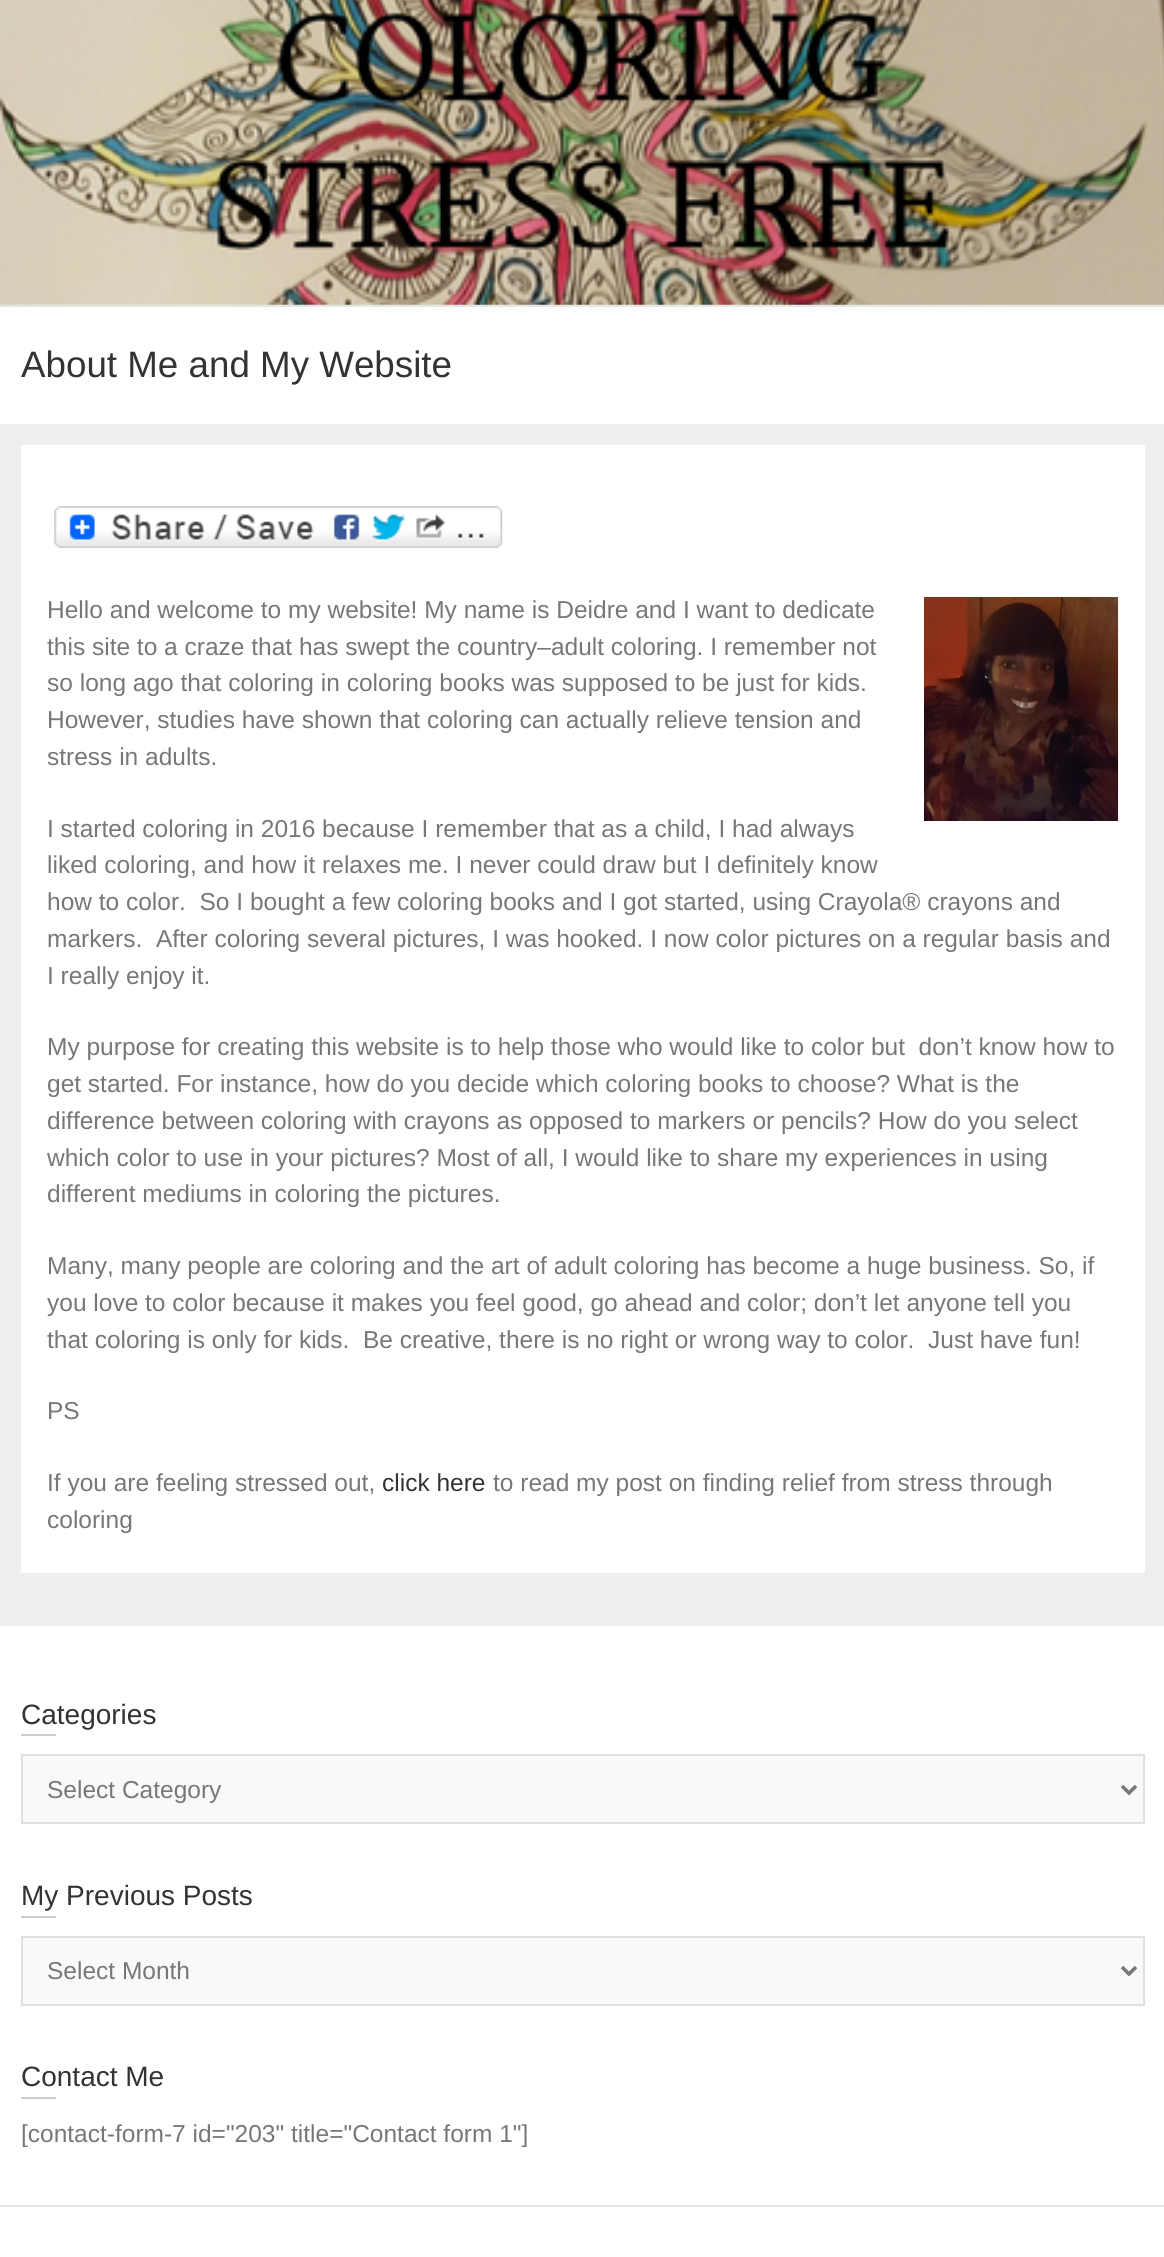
import math
import cairocffi as cairo

surface = cairo.ImageSurface(cairo.FORMAT_RGB24, 1164, 2257)
cr = cairo.Context(surface)
options = cairo.FontOptions()
options.set_hint_metrics(cairo.HINT_METRICS_OFF)
options.set_hint_style(cairo.HINT_STYLE_NONE)
cr.set_font_options(options)
cr.set_miter_limit(4)


def use_color(code):
    cr.set_source_rgb(*(v / 255 for v in bytes.fromhex(code[-6:])))


def picture(path, x, y, w, h):
    cr.save()
    cr.set_source_surface(cairo.ImageSurface.create_from_png(path), x, y)
    cr.rectangle(x, y, w, h)
    cr.fill()
    cr.restore()


use_color("#eeeeee")
cr.paint()
picture("img1.png", 0, 0, 1164, 305)
use_color("#ffffff")
cr.rectangle(0, 307, 1164, 117)
cr.fill()
use_color("#e6e6e6")
cr.rectangle(0, 305, 1164, 2)
cr.fill()
cr.select_font_face("Liberation Sans")
cr.set_font_size(36.75)
use_color("#333333")
cr.move_to(21, 377)
cr.show_text("About Me and My Website")
use_color("#ffffff")
cr.rectangle(21, 445, 1124, 1128)
cr.fill()
picture("img2.png", 54, 506, 449, 42)
cr.set_font_size(24.5)
use_color("#777777")
cr.move_to(47, 618)
cr.show_text("Hello and welcome to my website! My name is Deidre and I want to dedicate")
cr.move_to(47, 655)
cr.show_text("this site to a craze that has swept the country–adult coloring. I remember not")
cr.move_to(47, 691)
cr.show_text("so long ago that coloring in coloring books was supposed to be just for kids.")
cr.move_to(47, 728)
cr.show_text("However, studies have shown that coloring can actually relieve tension and")
cr.move_to(47, 765)
cr.show_text("stress in adults.")
picture("img3.png", 924, 597, 195, 224)
cr.move_to(47, 837)
cr.show_text("I started coloring in 2016 because I remember that as a child, I had always")
cr.move_to(47, 873)
cr.show_text("liked coloring, and how it relaxes me. I never could draw but I definitely know")
cr.move_to(47, 910)
cr.show_text("how to color.  So I bought a few coloring books and I got started, using Crayola® crayons and")
cr.move_to(47, 947)
cr.show_text("markers.  After coloring several pictures, I was hooked. I now color pictures on a regular basis and")
cr.move_to(47, 984)
cr.show_text("I really enjoy it.")
cr.move_to(47, 1055)
cr.show_text("My purpose for creating this website is to help those who would like to color but  don’t know how to")
cr.move_to(47, 1092)
cr.show_text("get started. For instance, how do you decide which coloring books to choose? What is the")
cr.move_to(47, 1129)
cr.show_text("difference between coloring with crayons as opposed to markers or pencils? How do you select")
cr.move_to(47, 1166)
cr.show_text("which color to use in your pictures? Most of all, I would like to share my experiences in using")
cr.move_to(47, 1202)
cr.show_text("different mediums in coloring the pictures.")
cr.move_to(47, 1274)
cr.show_text("Many, many people are coloring and the art of adult coloring has become a huge business. So, if")
cr.move_to(47, 1311)
cr.show_text("you love to color because it makes you feel good, go ahead and color; don’t let anyone tell you")
cr.move_to(47, 1348)
cr.show_text("that coloring is only for kids.  Be creative, there is no right or wrong way to color.  Just have fun!")
cr.move_to(47, 1419)
cr.show_text("PS")
cr.move_to(47, 1491)
cr.show_text("If you are feeling stressed out,")
use_color("#333333")
cr.move_to(382, 1491)
cr.show_text("click here")
use_color("#777777")
cr.move_to(493, 1491)
cr.show_text("to read my post on finding relief from stress through")
cr.move_to(47, 1528)
cr.show_text("coloring")
use_color("#ffffff")
cr.rectangle(0, 1626, 1164, 579)
cr.fill()
cr.set_font_size(28)
use_color("#333333")
cr.move_to(21, 1724)
cr.show_text("Categories")
use_color("#cccccc")
cr.rectangle(21, 1734, 35, 2)
cr.fill()
use_color("#f9f9f9")
cr.rectangle(22, 1755, 1122, 68)
cr.fill_preserve()
use_color("#e0e0e0")
cr.stroke()
cr.new_path()
cr.move_to(1122, 1786)
cr.line_to(1129, 1793)
cr.line_to(1136, 1786)
use_color("#777777")
cr.set_line_width(3.5)
cr.stroke()
cr.set_font_size(24.5)
cr.move_to(47, 1798)
cr.show_text("Select Category")
cr.set_font_size(28)
use_color("#333333")
cr.move_to(21, 1905)
cr.show_text("My Previous Posts")
use_color("#cccccc")
cr.rectangle(21, 1916, 35, 2)
cr.fill()
use_color("#f9f9f9")
cr.rectangle(22, 1937, 1122, 68)
cr.fill_preserve()
use_color("#e0e0e0")
cr.set_line_width(2)
cr.stroke()
cr.new_path()
cr.move_to(1122, 1967)
cr.line_to(1129, 1974)
cr.line_to(1136, 1967)
use_color("#777777")
cr.set_line_width(3.5)
cr.stroke()
cr.set_font_size(24.5)
cr.move_to(47, 1979)
cr.show_text("Select Month")
cr.set_font_size(28)
use_color("#333333")
cr.move_to(21, 2086)
cr.show_text("Contact Me")
use_color("#cccccc")
cr.rectangle(21, 2097, 35, 2)
cr.fill()
cr.set_font_size(24.5)
use_color("#777777")
cr.move_to(21, 2142)
cr.show_text("[contact-form-7 id=\"203\" title=\"Contact form 1\"]")
use_color("#ffffff")
cr.rectangle(0, 2207, 1164, 50)
cr.fill()
use_color("#e6e6e6")
cr.rectangle(0, 2205, 1164, 2)
cr.fill()
surface.write_to_png("result.png")
